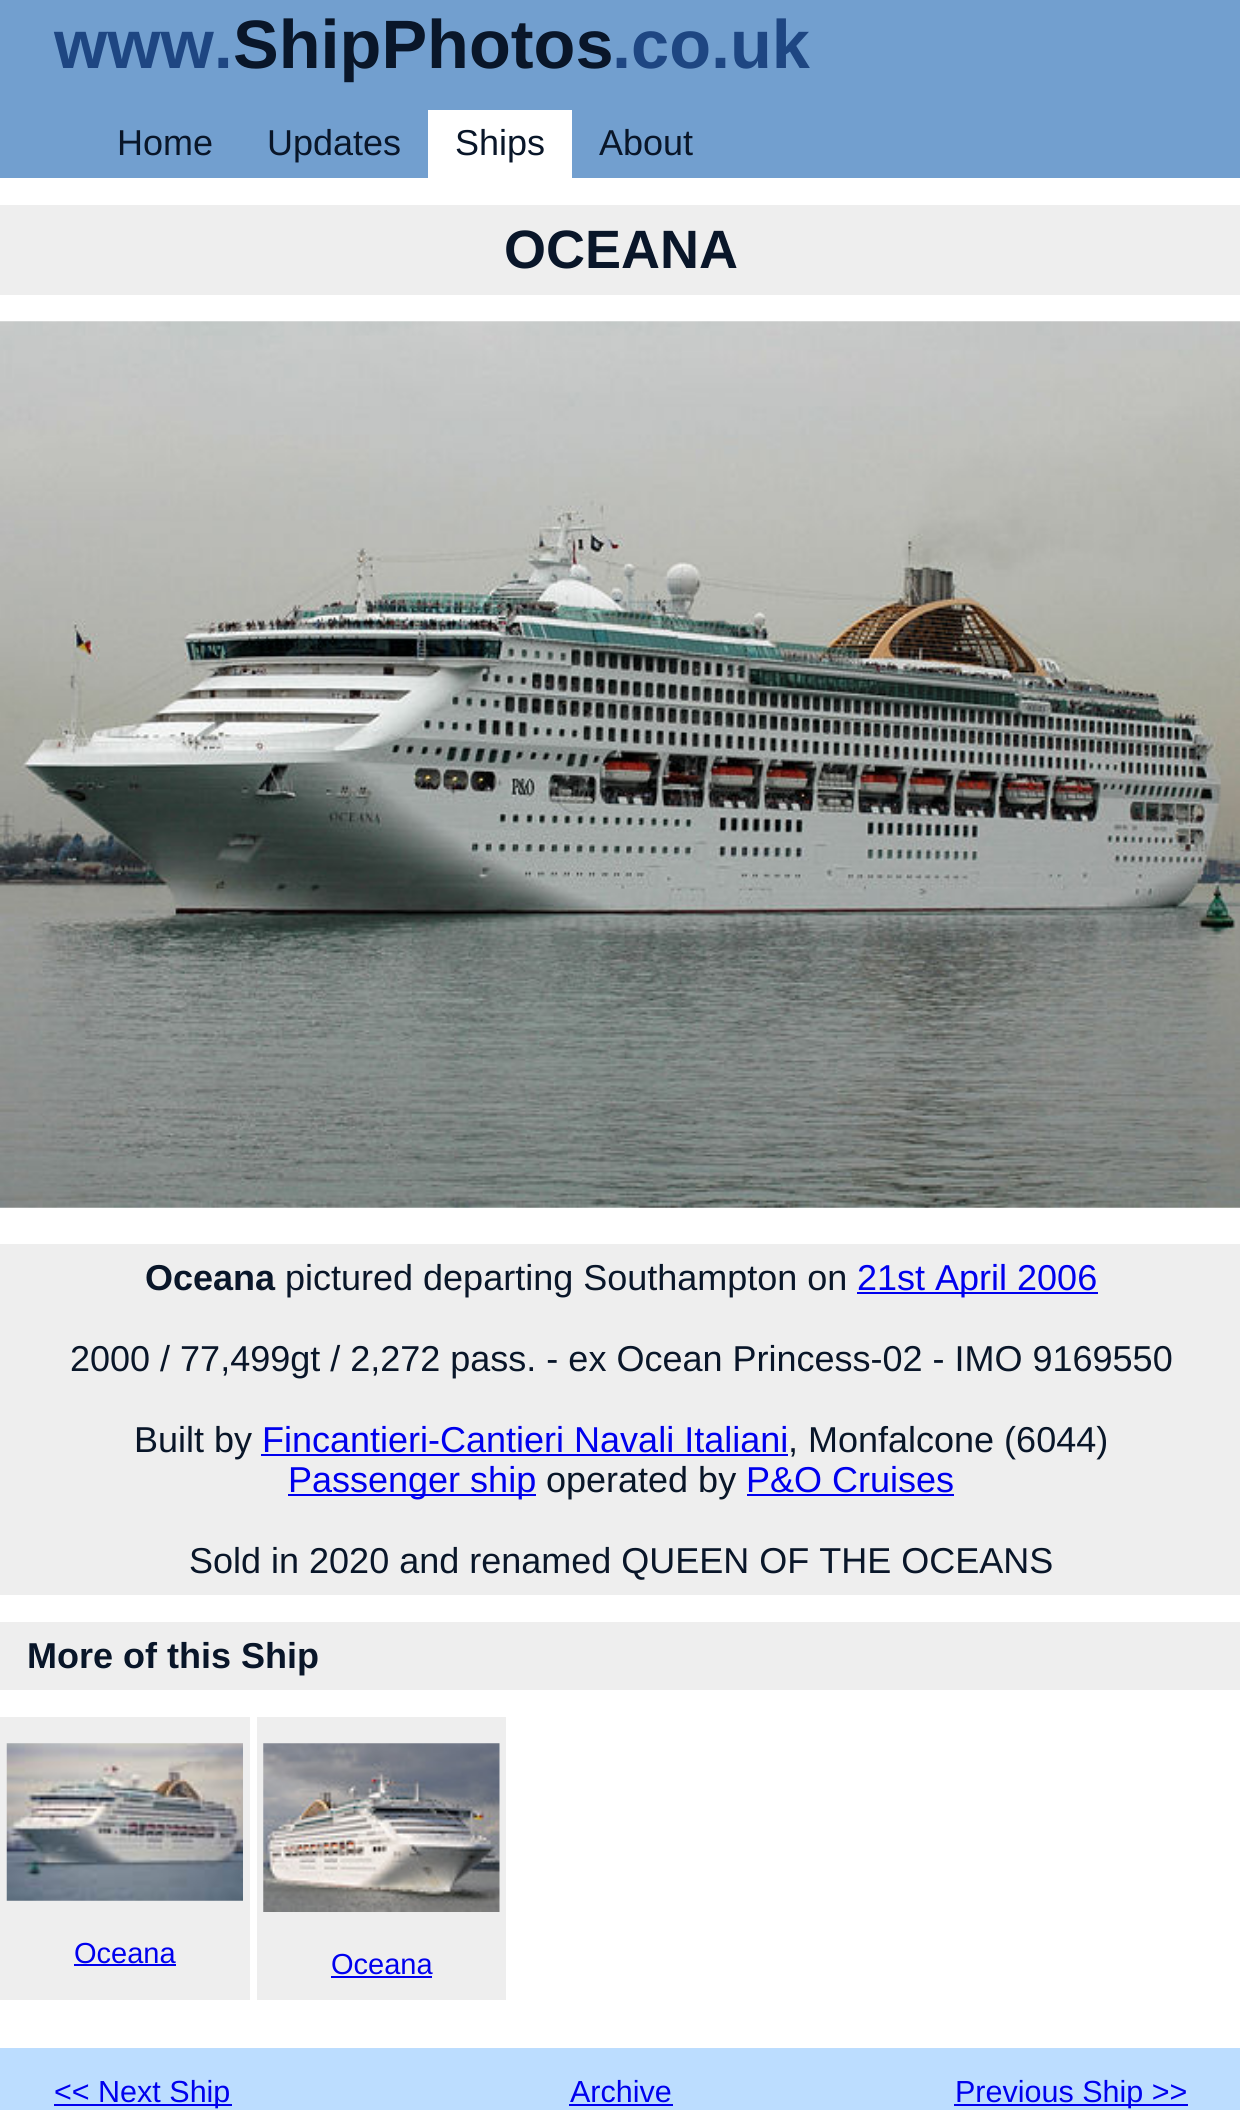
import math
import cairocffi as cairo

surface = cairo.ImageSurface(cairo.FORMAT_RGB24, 1240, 2110)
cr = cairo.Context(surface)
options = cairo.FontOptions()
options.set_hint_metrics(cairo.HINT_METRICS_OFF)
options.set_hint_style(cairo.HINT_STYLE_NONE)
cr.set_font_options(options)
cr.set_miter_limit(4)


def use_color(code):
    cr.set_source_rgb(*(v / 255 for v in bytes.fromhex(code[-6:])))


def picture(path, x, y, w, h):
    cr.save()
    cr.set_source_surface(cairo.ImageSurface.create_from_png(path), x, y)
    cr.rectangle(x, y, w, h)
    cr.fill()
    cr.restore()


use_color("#729fcf")
cr.paint()
cr.select_font_face("Liberation Sans", cairo.FONT_SLANT_NORMAL, cairo.FONT_WEIGHT_BOLD)
cr.set_font_size(68.5)
use_color("#1e4682")
cr.move_to(54, 68)
cr.show_text("www.")
use_color("#091629")
cr.move_to(233, 68)
cr.show_text("ShipPhotos")
use_color("#1e4682")
cr.move_to(612, 68)
cr.show_text(".co.uk")
cr.select_font_face("Liberation Sans")
cr.set_font_size(36)
use_color("#091629")
cr.move_to(117, 155)
cr.show_text("Home")
cr.move_to(267, 155)
cr.show_text("Updates")
use_color("#ffffff")
cr.rectangle(428, 110, 144, 68)
cr.fill()
use_color("#091629")
cr.move_to(455, 155)
cr.show_text("Ships")
cr.move_to(599, 155)
cr.show_text("About")
use_color("#ffffff")
cr.rectangle(0, 178, 1240, 1870)
cr.fill()
use_color("#eeeeee")
cr.rectangle(0, 205, 1240, 90)
cr.fill()
cr.select_font_face("Liberation Sans", cairo.FONT_SLANT_NORMAL, cairo.FONT_WEIGHT_BOLD)
cr.set_font_size(54)
use_color("#091629")
cr.move_to(504, 268)
cr.show_text("OCEANA")
picture("img1.png", 0, 321, 1240, 887)
use_color("#eeeeee")
cr.rectangle(0, 1244, 1240, 351)
cr.fill()
cr.set_font_size(36)
use_color("#091629")
cr.move_to(145, 1290)
cr.show_text("Oceana")
cr.select_font_face("Liberation Sans")
cr.move_to(285, 1290)
cr.show_text("pictured departing Southampton on")
use_color("#0000ee")
cr.rectangle(857, 1292, 241, 2)
cr.fill()
cr.move_to(857, 1290)
cr.show_text("21st April 2006")
use_color("#091629")
cr.move_to(70, 1371)
cr.show_text("2000 / 77,499gt / 2,272 pass. - ex Ocean Princess-02 - IMO 9169550")
cr.move_to(134, 1452)
cr.show_text("Built by")
use_color("#0000ee")
cr.move_to(262, 1452)
cr.show_text("Fincantieri-Cantieri Navali Italiani")
cr.rectangle(261, 1454, 527, 2)
cr.fill()
use_color("#091629")
cr.move_to(788, 1452)
cr.show_text(", Monfalcone (6044)")
use_color("#0000ee")
cr.rectangle(288, 1494, 248, 2)
cr.fill()
cr.move_to(288, 1492)
cr.show_text("Passenger ship")
use_color("#091629")
cr.move_to(546, 1492)
cr.show_text("operated by")
use_color("#0000ee")
cr.move_to(746, 1492)
cr.show_text("P&O Cruises")
cr.rectangle(747, 1494, 207, 2)
cr.fill()
use_color("#091629")
cr.move_to(189, 1573)
cr.show_text("Sold in 2020 and renamed QUEEN OF THE OCEANS")
use_color("#eeeeee")
cr.rectangle(0, 1622, 1240, 68)
cr.fill()
cr.select_font_face("Liberation Sans", cairo.FONT_SLANT_NORMAL, cairo.FONT_WEIGHT_BOLD)
use_color("#091629")
cr.move_to(27, 1668)
cr.show_text("More of this Ship")
use_color("#eeeeee")
cr.rectangle(0, 1717, 250, 283)
cr.fill()
picture("img2.png", 6, 1743, 237, 158)
cr.select_font_face("Liberation Sans")
cr.set_font_size(29)
use_color("#0000ee")
cr.move_to(74, 1963)
cr.show_text("Oceana")
cr.rectangle(74, 1964, 102, 2)
cr.fill()
use_color("#eeeeee")
cr.rectangle(257, 1717, 249, 283)
cr.fill()
picture("img3.png", 263, 1743, 237, 169)
use_color("#0000ee")
cr.move_to(331, 1974)
cr.show_text("Oceana")
cr.rectangle(331, 1976, 101, 2)
cr.fill()
use_color("#bcddff")
cr.rectangle(0, 2048, 1240, 62)
cr.fill()
use_color("#0000ee")
cr.rectangle(54, 2104, 178, 2)
cr.fill()
cr.set_font_size(30.5)
cr.move_to(54, 2102)
cr.show_text("<< Next Ship")
cr.move_to(570, 2102)
cr.show_text("Archive")
cr.rectangle(569, 2104, 104, 2)
cr.fill()
cr.rectangle(954, 2104, 234, 2)
cr.fill()
cr.move_to(955, 2102)
cr.show_text("Previous Ship >>")
surface.write_to_png("result.png")
